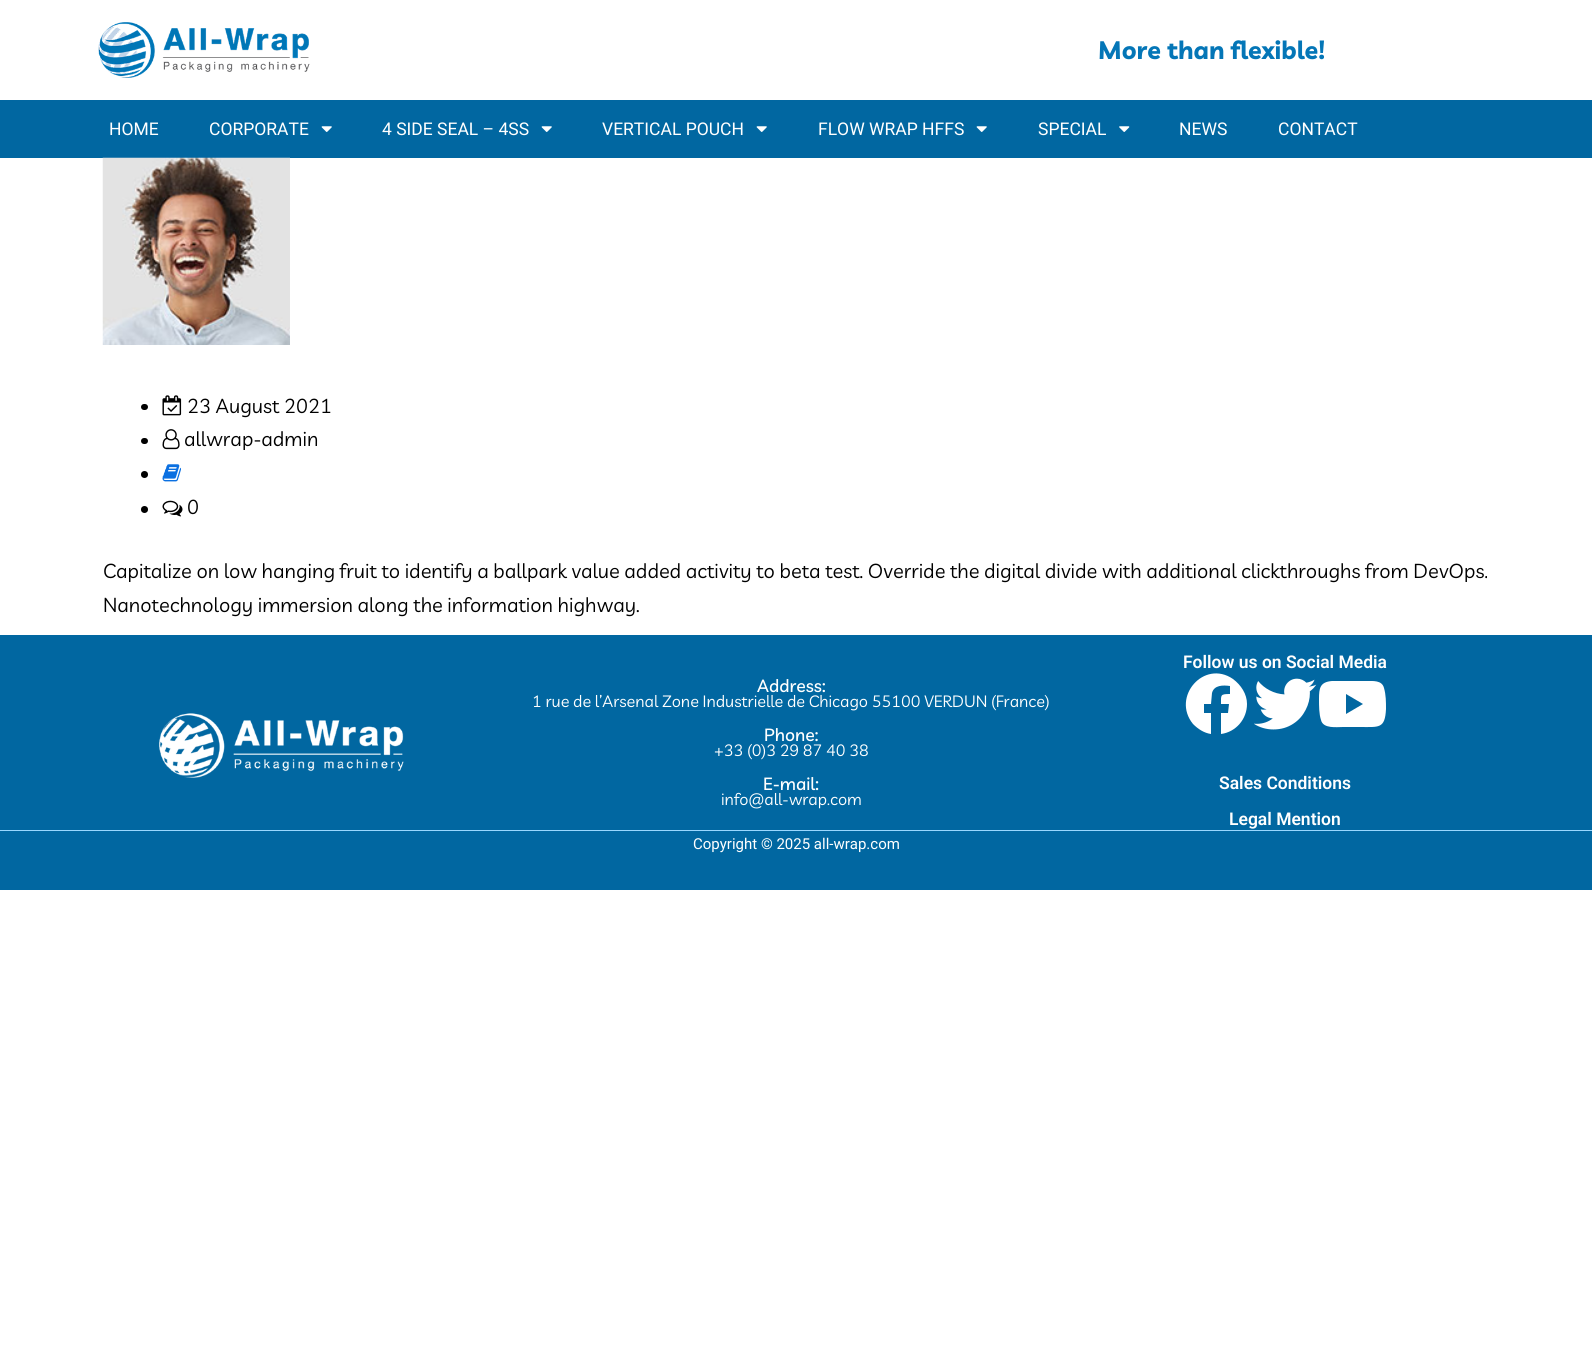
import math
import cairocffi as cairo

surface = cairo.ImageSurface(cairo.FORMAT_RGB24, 1592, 1364)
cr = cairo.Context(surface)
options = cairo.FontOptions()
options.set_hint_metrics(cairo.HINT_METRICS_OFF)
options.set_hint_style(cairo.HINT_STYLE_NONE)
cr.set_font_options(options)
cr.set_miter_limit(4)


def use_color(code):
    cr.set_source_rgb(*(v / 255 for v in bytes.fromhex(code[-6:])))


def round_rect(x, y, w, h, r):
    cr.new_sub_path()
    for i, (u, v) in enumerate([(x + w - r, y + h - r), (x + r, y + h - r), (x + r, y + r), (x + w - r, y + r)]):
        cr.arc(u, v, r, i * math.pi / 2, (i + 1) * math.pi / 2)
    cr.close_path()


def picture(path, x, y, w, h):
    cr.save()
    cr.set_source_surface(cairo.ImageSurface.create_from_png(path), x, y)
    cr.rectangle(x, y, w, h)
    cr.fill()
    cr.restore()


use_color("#ffffff")
cr.paint()
picture("img1.png", 98, 22, 212, 56)
cr.select_font_face("Livvic", cairo.FONT_SLANT_NORMAL, cairo.FONT_WEIGHT_BOLD)
cr.set_font_size(25)
use_color("#0476b7")
cr.move_to(1098, 59)
cr.show_text("More than flexible!")
use_color("#0167a1")
cr.rectangle(0, 100, 1592, 58)
cr.fill()
cr.select_font_face("Roboto")
cr.set_font_size(17.5)
use_color("#ffffff")
cr.move_to(109, 135)
cr.show_text("HOME")
cr.move_to(209, 135)
cr.show_text("CORPORATE")
picture("img2.png", 321, 126, 11, 6)
cr.move_to(382, 135)
cr.show_text("4 SIDE SEAL – 4SS")
picture("img2.png", 541, 126, 11, 6)
cr.move_to(602, 135)
cr.show_text("VERTICAL POUCH")
picture("img2.png", 756, 126, 11, 6)
cr.move_to(818, 135)
cr.show_text("FLOW WRAP HFFS")
picture("img2.png", 976, 126, 11, 6)
cr.move_to(1038, 135)
cr.show_text("SPECIAL")
picture("img3.png", 1119, 126, 11, 6)
cr.move_to(1179, 135)
cr.show_text("NEWS")
cr.move_to(1278, 135)
cr.show_text("CONTACT")
picture("img4.png", 102, 157, 188, 188)
use_color("#000000")
round_rect(141, 404, 7, 6, 3)
cr.fill()
picture("img5.png", 162, 395, 20, 21)
cr.select_font_face("Livvic")
cr.set_font_size(20)
cr.move_to(187, 413)
cr.show_text("23 August 2021")
round_rect(141, 438, 7, 6, 3)
cr.fill()
picture("img6.png", 162, 429, 18, 21)
cr.move_to(184, 446)
cr.show_text("allwrap-admin")
cr.new_path()
cr.arc(144.5, 474.5, 3.5, 0, 2 * math.pi)
cr.fill()
picture("img7.png", 162, 464, 19, 18)
cr.arc(144.5, 509.5, 3.5, 0, 2 * math.pi)
cr.fill()
picture("img8.png", 162, 500, 21, 17)
cr.move_to(187, 514)
cr.show_text("0")
cr.move_to(103, 578)
cr.show_text("Capitalize on low hanging fruit to identify a ballpark value added activity to beta test. Override the digital divide with additional clickthroughs from DevOps.")
cr.move_to(103, 612)
cr.show_text("Nanotechnology immersion along the information highway.")
use_color("#0167a1")
cr.rectangle(0, 635, 1592, 195)
cr.fill()
picture("img9.png", 159, 713, 245, 65)
cr.select_font_face("Livvic Medium")
cr.set_font_size(17.5)
use_color("#ffffff")
cr.move_to(757, 692)
cr.show_text("Address:")
cr.select_font_face("Livvic")
cr.set_font_size(16.25)
cr.move_to(532, 707)
cr.show_text("1 rue de l’Arsenal Zone Industrielle de Chicago 55100 VERDUN (France)")
cr.select_font_face("Livvic Medium")
cr.set_font_size(17.5)
cr.move_to(764, 741)
cr.show_text("Phone:")
cr.select_font_face("Livvic")
cr.set_font_size(16.25)
cr.move_to(714, 756)
cr.show_text("+33 (0)3 29 87 40 38")
cr.select_font_face("Livvic Medium")
cr.set_font_size(17.5)
cr.move_to(763, 790)
cr.show_text("E-mail:")
cr.select_font_face("Livvic")
cr.set_font_size(16.25)
cr.move_to(721, 805)
cr.show_text("info@all-wrap.com")
cr.select_font_face("Roboto SemiBold")
cr.set_font_size(17.5)
cr.move_to(1183, 668)
cr.show_text("Follow us on Social Media")
cr.new_path()
cr.move_to(1247, 704)
cr.curve_to(1247, 719, 1236, 732, 1221, 734)
cr.line_to(1221, 713)
cr.line_to(1228, 713)
cr.line_to(1229, 704)
cr.line_to(1221, 704)
cr.curve_to(1221, 695, 1220, 694, 1230, 694)
cr.line_to(1230, 686)
cr.curve_to(1223, 685, 1214, 685, 1212, 693)
cr.line_to(1211, 704)
cr.line_to(1204, 704)
cr.line_to(1204, 713)
cr.line_to(1211, 713)
cr.line_to(1211, 734)
cr.curve_to(1204, 733, 1198, 729, 1193, 724)
cr.curve_to(1171, 697, 1204, 659, 1233, 679)
cr.curve_to(1241, 685, 1247, 694, 1247, 704)
cr.close_path()
cr.fill()
picture("img10.png", 1254, 678, 63, 52)
cr.new_path()
cr.move_to(1384, 688)
cr.curve_to(1386, 695, 1386, 702, 1386, 709)
cr.curve_to(1385, 729, 1379, 727, 1360, 727)
cr.line_to(1343, 727)
cr.curve_to(1337, 727, 1323, 729, 1321, 720)
cr.curve_to(1319, 714, 1319, 706, 1319, 699)
cr.curve_to(1319, 688, 1320, 682, 1332, 681)
cr.line_to(1347, 681)
cr.line_to(1366, 681)
cr.curve_to(1373, 681, 1382, 680, 1384, 688)
cr.close_path()
cr.move_to(1346, 714)
cr.line_to(1363, 704)
cr.line_to(1346, 694)
cr.close_path()
cr.fill()
cr.move_to(1219, 789)
cr.show_text("Sales Conditions")
cr.move_to(1229, 825)
cr.show_text("Legal Mention")
use_color("#0167a1")
cr.rectangle(0, 831, 1592, 59)
cr.fill()
use_color("#9ad8ff")
cr.rectangle(0, 830, 1592, 1)
cr.fill()
cr.select_font_face("Roboto")
cr.set_font_size(15)
use_color("#ffffff")
cr.move_to(693, 849)
cr.show_text("Copyright © 2025 all-wrap.com")
surface.write_to_png("result.png")
